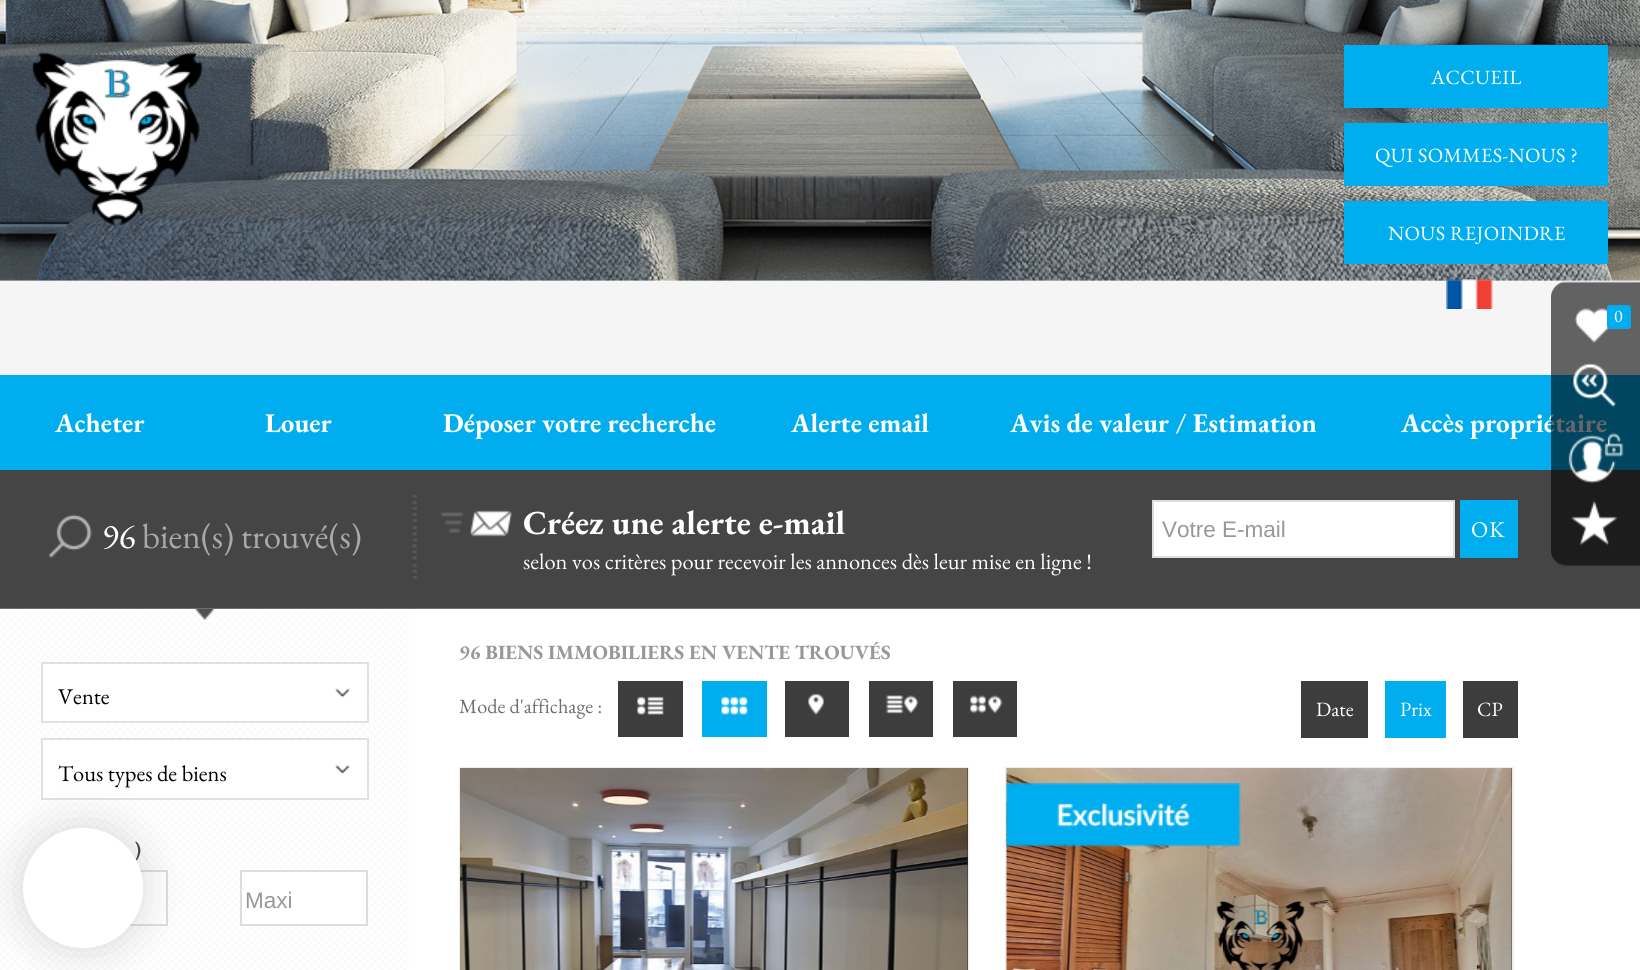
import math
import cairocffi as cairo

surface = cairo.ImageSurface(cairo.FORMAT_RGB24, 1640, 970)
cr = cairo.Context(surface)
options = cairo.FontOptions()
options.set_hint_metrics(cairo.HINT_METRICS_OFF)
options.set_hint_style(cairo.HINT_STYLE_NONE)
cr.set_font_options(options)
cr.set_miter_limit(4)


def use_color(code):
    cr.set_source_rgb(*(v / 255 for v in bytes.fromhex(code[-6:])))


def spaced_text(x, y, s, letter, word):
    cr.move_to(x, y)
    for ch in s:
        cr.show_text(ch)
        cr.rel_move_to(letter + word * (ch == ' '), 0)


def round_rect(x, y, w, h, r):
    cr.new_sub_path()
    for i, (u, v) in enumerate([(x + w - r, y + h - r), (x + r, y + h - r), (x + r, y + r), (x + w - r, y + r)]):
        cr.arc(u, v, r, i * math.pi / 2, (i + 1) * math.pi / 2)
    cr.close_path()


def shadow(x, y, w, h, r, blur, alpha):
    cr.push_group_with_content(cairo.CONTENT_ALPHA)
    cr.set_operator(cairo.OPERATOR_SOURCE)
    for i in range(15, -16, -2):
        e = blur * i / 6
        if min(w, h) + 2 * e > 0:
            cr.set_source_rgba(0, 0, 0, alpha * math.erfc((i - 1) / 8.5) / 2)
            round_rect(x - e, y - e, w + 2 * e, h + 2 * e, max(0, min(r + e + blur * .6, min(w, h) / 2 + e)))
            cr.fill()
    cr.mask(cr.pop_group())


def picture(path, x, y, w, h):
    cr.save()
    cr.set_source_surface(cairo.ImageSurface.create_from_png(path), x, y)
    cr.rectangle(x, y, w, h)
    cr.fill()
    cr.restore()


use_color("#ffffff")
cr.paint()
use_color("#f5f5f5")
cr.rectangle(0, 279, 1640, 96)
cr.fill()
picture("img1.png", 0, 0, 1640, 281)
picture("img2.png", 32, 52, 171, 174)
use_color("#00aeef")
cr.rectangle(1344, 45, 264, 63)
cr.fill()
cr.select_font_face("EB Garamond")
cr.set_font_size(20.25)
use_color("#ffffff")
spaced_text(1431, 84, "ACCUEIL", 0.4, 0)
use_color("#00aeef")
cr.rectangle(1344, 123, 264, 63)
cr.fill()
use_color("#ffffff")
spaced_text(1375, 162, "QUI SOMMES-NOUS ?", 0.4, 0)
use_color("#00aeef")
cr.rectangle(1344, 201, 264, 63)
cr.fill()
use_color("#ffffff")
spaced_text(1388, 240, "NOUS REJOINDRE", 0.4, 0)
picture("img3.png", 1446, 279, 47, 30)
use_color("#00aeef")
cr.rectangle(0, 375, 1640, 95)
cr.fill()
cr.select_font_face("EB Garamond", cairo.FONT_SLANT_NORMAL, cairo.FONT_WEIGHT_BOLD)
cr.set_font_size(27)
use_color("#ffffff")
cr.move_to(1401, 432)
cr.show_text("Accès propriétaire")
use_color("#454545")
cr.rectangle(0, 470, 1640, 138)
cr.fill()
picture("img4.png", 1551, 281, 89, 285)
picture("img5.png", 1574, 308, 36, 35)
use_color("#00aeef")
round_rect(1607, 305, 24, 24, 3)
cr.fill()
cr.select_font_face("EB Garamond")
cr.set_font_size(18)
use_color("#ffffff")
cr.move_to(1614, 322)
cr.show_text("0")
picture("img6.png", 1573, 363, 43, 44)
picture("img7.png", 1568, 432, 56, 52)
picture("img8.png", 1571, 500, 47, 46)
cr.select_font_face("EB Garamond", cairo.FONT_SLANT_NORMAL, cairo.FONT_WEIGHT_BOLD)
cr.set_font_size(27)
cr.move_to(55, 432)
cr.show_text("Acheter")
cr.move_to(265, 432)
cr.show_text("Louer")
cr.move_to(443, 432)
cr.show_text("Déposer votre recherche")
cr.move_to(791, 432)
cr.show_text("Alerte email")
cr.move_to(1010, 432)
cr.show_text("Avis de valeur / Estimation")
picture("img9.png", 49, 514, 43, 44)
cr.select_font_face("EB Garamond")
cr.set_font_size(35)
cr.move_to(102, 548)
cr.show_text("96")
use_color("#a9a9a9")
cr.move_to(142, 548)
cr.show_text("bien(s) trouvé(s)")
picture("img10.png", 412, 495, 5, 84)
picture("img11.png", 441, 510, 71, 27)
cr.select_font_face("EB Garamond", cairo.FONT_SLANT_NORMAL, cairo.FONT_WEIGHT_BOLD)
cr.set_font_size(33.75)
use_color("#ffffff")
cr.move_to(523, 534)
cr.show_text("Créez une alerte e-mail")
cr.select_font_face("EB Garamond")
cr.set_font_size(22.5)
cr.move_to(523, 569)
cr.show_text("selon vos critères pour recevoir les annonces dès leur mise en ligne !")
cr.rectangle(1153, 501, 301, 56)
cr.fill_preserve()
use_color("#dfdddb")
cr.stroke()
cr.select_font_face("Liberation Sans")
use_color("#999797")
cr.move_to(1162, 537)
cr.show_text("Votre E-mail")
use_color("#00aeef")
cr.rectangle(1460, 500, 58, 58)
cr.fill()
cr.select_font_face("EB Garamond")
use_color("#ffffff")
spaced_text(1471, 537, "OK", 1, 0)
use_color("#6e6e6e")
cr.rectangle(0, 608, 1640, 1)
cr.fill()
cr.select_font_face("EB Garamond", cairo.FONT_SLANT_NORMAL, cairo.FONT_WEIGHT_BOLD)
cr.set_font_size(20.25)
use_color("#999797")
cr.move_to(459, 659)
cr.show_text("96 BIENS IMMOBILIERS EN VENTE TROUVÉS")
cr.select_font_face("EB Garamond")
use_color("#6e6e6e")
cr.move_to(459, 713)
cr.show_text("Mode d'affichage :")
use_color("#3d3d3d")
cr.rectangle(618, 681, 65, 56)
cr.fill()
picture("img12.png", 637, 696, 28, 19)
use_color("#00aeef")
cr.rectangle(702, 681, 65, 56)
cr.fill()
picture("img13.png", 721, 696, 27, 19)
use_color("#3d3d3d")
cr.rectangle(785, 681, 64, 56)
cr.fill()
picture("img14.png", 808, 693, 16, 22)
cr.rectangle(869, 681, 64, 56)
cr.fill()
picture("img15.png", 886, 695, 33, 19)
cr.rectangle(953, 681, 64, 56)
cr.fill()
picture("img16.png", 970, 695, 33, 19)
cr.rectangle(1301, 681, 67, 57)
cr.fill()
use_color("#ffffff")
cr.move_to(1316, 716)
cr.show_text("Date")
use_color("#00aeef")
cr.rectangle(1385, 681, 61, 57)
cr.fill()
use_color("#ffffff")
cr.move_to(1400, 716)
cr.show_text("Prix")
use_color("#3d3d3d")
cr.rectangle(1463, 681, 55, 57)
cr.fill()
use_color("#ffffff")
cr.move_to(1477, 716)
cr.show_text("CP")
cr.rectangle(460, 768, 508, 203)
use_color("#eeeeee")
cr.stroke()
use_color("#2f2f2f")
cr.rectangle(967, 768, 1, 202)
cr.fill()
picture("img17.png", 460, 768, 508, 202)
cr.rectangle(1006, 768, 507, 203)
use_color("#eeeeee")
cr.stroke()
use_color("#2f2f2f")
cr.rectangle(1511, 768, 1, 202)
cr.fill()
picture("img18.png", 1006, 768, 506, 202)
picture("img19.png", 1006, 783, 235, 64)
picture("img20.png", 0, 612, 409, 358)
picture("img21.png", 195, 609, 20, 11)
use_color("#ffffff")
cr.rectangle(42, 663, 326, 59)
cr.fill_preserve()
use_color("#e1e1e1")
cr.stroke()
picture("img22.png", 335, 688, 15, 10)
cr.set_font_size(22.5)
use_color("#000000")
cr.move_to(58, 704)
cr.show_text("Vente")
use_color("#ffffff")
cr.rectangle(42, 739, 326, 60)
cr.fill_preserve()
use_color("#e1e1e1")
cr.stroke()
picture("img23.png", 335, 764, 15, 10)
use_color("#000000")
cr.move_to(58, 781)
cr.show_text("Tous types de biens")
cr.select_font_face("EB Garamond", cairo.FONT_SLANT_NORMAL, cairo.FONT_WEIGHT_BOLD)
cr.set_font_size(20.25)
use_color("#4d4d4d")
cr.move_to(135, 856)
cr.show_text(")")
use_color("#ffffff")
cr.rectangle(131, 872, 35, 52)
cr.fill()
cr.rectangle(42, 871, 125, 54)
use_color("#dfdddb")
cr.stroke()
use_color("#ffffff")
cr.rectangle(241, 871, 126, 54)
cr.fill_preserve()
use_color("#dfdddb")
cr.stroke()
cr.select_font_face("Liberation Sans")
cr.set_font_size(22.5)
use_color("#999797")
cr.move_to(245, 908)
cr.show_text("Maxi")
use_color("#000000")
shadow(23, 828, 120, 120, 60, 22.5, 0.15)
use_color("#ffffff")
cr.arc(83, 888, 60, 0, 2 * math.pi)
cr.fill()
surface.write_to_png("result.png")
